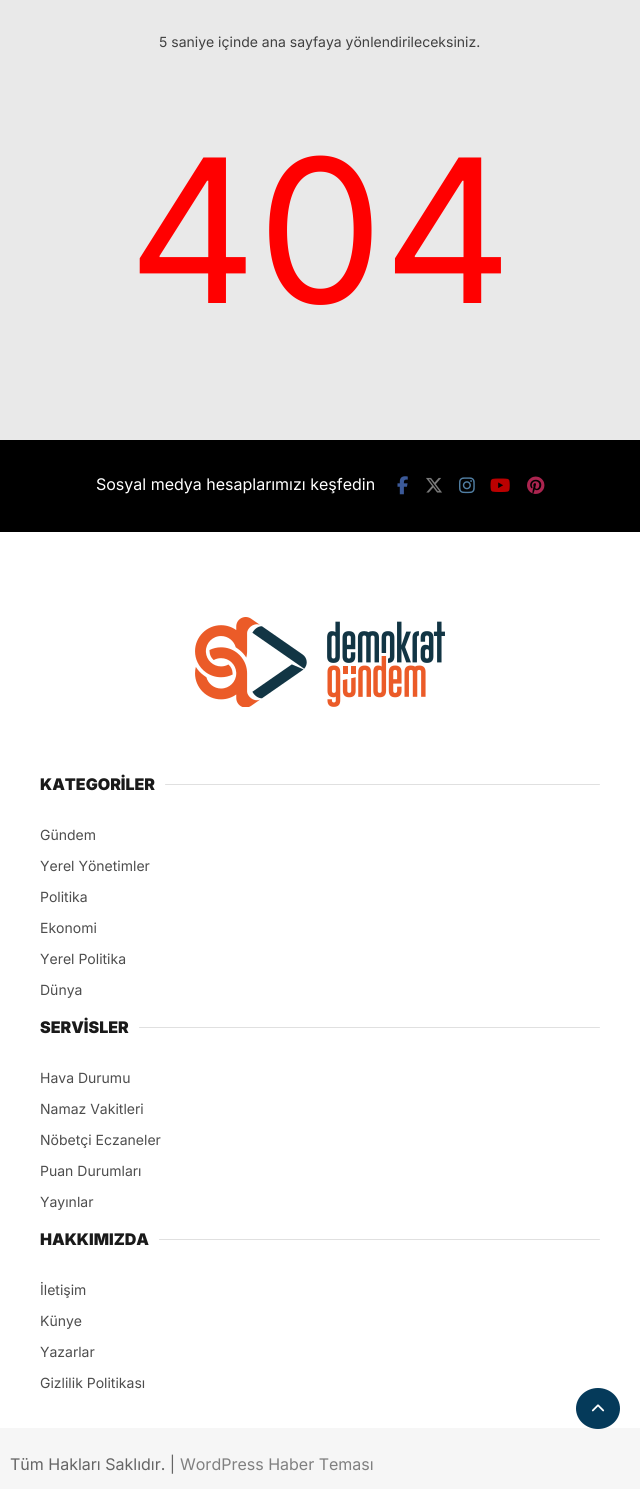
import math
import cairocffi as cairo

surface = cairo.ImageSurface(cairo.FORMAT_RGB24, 640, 1489)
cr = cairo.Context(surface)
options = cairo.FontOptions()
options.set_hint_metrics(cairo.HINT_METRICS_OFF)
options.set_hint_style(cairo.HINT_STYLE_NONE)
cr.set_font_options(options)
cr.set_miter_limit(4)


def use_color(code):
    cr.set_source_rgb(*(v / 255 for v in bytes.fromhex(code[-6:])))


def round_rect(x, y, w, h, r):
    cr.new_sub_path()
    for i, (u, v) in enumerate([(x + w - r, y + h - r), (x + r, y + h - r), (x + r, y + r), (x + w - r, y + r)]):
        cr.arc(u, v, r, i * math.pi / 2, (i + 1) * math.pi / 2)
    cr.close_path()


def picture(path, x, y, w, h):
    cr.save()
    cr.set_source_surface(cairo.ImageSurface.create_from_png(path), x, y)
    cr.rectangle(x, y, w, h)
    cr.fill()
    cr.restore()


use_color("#e9e9e9")
cr.paint()
cr.select_font_face("Inter")
cr.set_font_size(14)
use_color("#404040")
cr.move_to(159, 47)
cr.show_text("5 saniye içinde ana sayfaya yönlendirileceksiniz.")
cr.set_font_size(200)
use_color("#ff0000")
cr.move_to(128, 303)
cr.show_text("404")
use_color("#000000")
cr.rectangle(0, 440, 640, 92)
cr.fill()
cr.set_font_size(16)
use_color("#ffffff")
cr.move_to(96, 490)
cr.show_text("Sosyal medya hesaplarımızı keşfedin")
picture("img1.png", 397, 476, 11, 19)
picture("img2.png", 426, 477, 16, 16)
picture("img3.png", 459, 477, 16, 17)
picture("img4.png", 490, 478, 20, 14)
picture("img5.png", 527, 476, 18, 18)
cr.rectangle(0, 532, 640, 896)
cr.fill()
picture("img6.png", 195, 617, 250, 90)
cr.select_font_face("Inter Black")
use_color("#1a1a1a")
cr.move_to(40, 790)
cr.show_text("KATEGORİLER")
use_color("#e0e0e0")
round_rect(165, 784, 435, 1, 0.5)
cr.fill()
cr.select_font_face("Inter")
cr.set_font_size(14)
use_color("#4d4d4d")
cr.move_to(40, 840)
cr.show_text("Gündem")
cr.move_to(40, 871)
cr.show_text("Yerel Yönetimler")
cr.move_to(40, 902)
cr.show_text("Politika")
cr.move_to(40, 933)
cr.show_text("Ekonomi")
cr.move_to(40, 964)
cr.show_text("Yerel Politika")
cr.move_to(40, 995)
cr.show_text("Dünya")
cr.select_font_face("Inter Black")
cr.set_font_size(16)
use_color("#1a1a1a")
cr.move_to(40, 1033)
cr.show_text("SERVİSLER")
use_color("#e0e0e0")
round_rect(139, 1027, 461, 1, 0.5)
cr.fill()
cr.select_font_face("Inter")
cr.set_font_size(14)
use_color("#4d4d4d")
cr.move_to(40, 1083)
cr.show_text("Hava Durumu")
cr.move_to(40, 1114)
cr.show_text("Namaz Vakitleri")
cr.move_to(40, 1145)
cr.show_text("Nöbetçi Eczaneler")
cr.move_to(40, 1176)
cr.show_text("Puan Durumları")
cr.move_to(40, 1207)
cr.show_text("Yayınlar")
cr.select_font_face("Inter Black")
cr.set_font_size(16)
use_color("#1a1a1a")
cr.move_to(40, 1245)
cr.show_text("HAKKIMIZDA")
use_color("#e0e0e0")
round_rect(159, 1239, 441, 1, 0.5)
cr.fill()
cr.select_font_face("Inter")
cr.set_font_size(14)
use_color("#4d4d4d")
cr.move_to(40, 1295)
cr.show_text("İletişim")
cr.move_to(40, 1326)
cr.show_text("Künye")
cr.move_to(40, 1357)
cr.show_text("Yazarlar")
cr.move_to(40, 1388)
cr.show_text("Gizlilik Politikası")
use_color("#f6f6f6")
cr.rectangle(0, 1428, 640, 61)
cr.fill()
cr.set_font_size(16)
use_color("#656565")
cr.move_to(10, 1470)
cr.show_text("Tüm Hakları Saklıdır. |")
use_color("#808080")
cr.move_to(180, 1470)
cr.show_text("WordPress Haber Teması")
use_color("#053a5a")
cr.new_path()
cr.move_to(598, 1388)
cr.curve_to(610, 1388, 620, 1397, 620, 1408.5)
cr.curve_to(620, 1420, 610, 1429, 598, 1429)
cr.curve_to(586, 1429, 576, 1420, 576, 1408.5)
cr.curve_to(576, 1397, 586, 1388, 598, 1388)
cr.close_path()
cr.fill()
picture("img7.png", 591, 1404, 14, 8)
surface.write_to_png("result.png")
